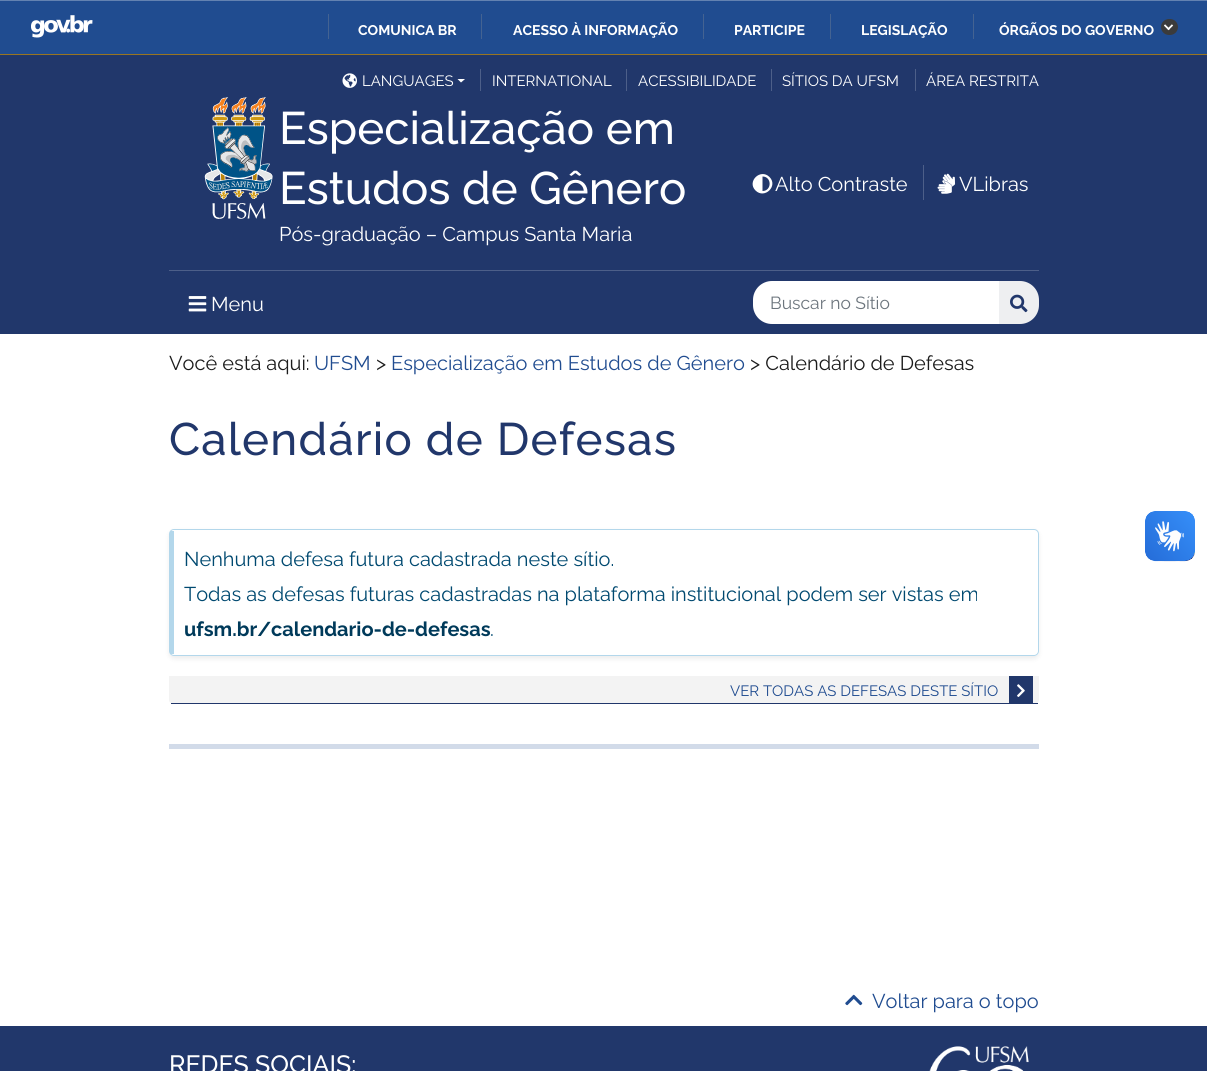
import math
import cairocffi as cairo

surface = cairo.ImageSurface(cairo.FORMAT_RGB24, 1207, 1071)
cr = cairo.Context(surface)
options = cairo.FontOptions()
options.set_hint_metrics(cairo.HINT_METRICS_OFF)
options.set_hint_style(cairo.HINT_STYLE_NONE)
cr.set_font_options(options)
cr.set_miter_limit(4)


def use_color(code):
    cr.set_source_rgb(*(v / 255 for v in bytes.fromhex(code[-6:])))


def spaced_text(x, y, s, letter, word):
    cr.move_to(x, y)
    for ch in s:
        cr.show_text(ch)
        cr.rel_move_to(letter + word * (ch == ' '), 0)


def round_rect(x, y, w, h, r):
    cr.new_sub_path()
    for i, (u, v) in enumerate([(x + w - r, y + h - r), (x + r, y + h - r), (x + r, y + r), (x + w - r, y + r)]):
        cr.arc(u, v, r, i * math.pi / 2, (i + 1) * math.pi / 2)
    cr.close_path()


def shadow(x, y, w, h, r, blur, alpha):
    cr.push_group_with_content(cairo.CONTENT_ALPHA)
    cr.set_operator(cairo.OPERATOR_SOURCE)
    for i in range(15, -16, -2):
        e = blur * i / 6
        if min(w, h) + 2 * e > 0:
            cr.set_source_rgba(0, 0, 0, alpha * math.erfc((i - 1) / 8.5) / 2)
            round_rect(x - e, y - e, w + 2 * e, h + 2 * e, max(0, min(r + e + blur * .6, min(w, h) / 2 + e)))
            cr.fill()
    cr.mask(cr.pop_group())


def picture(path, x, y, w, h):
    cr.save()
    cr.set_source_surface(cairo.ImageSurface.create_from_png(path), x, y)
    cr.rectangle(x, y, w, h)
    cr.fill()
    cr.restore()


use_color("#ffffff")
cr.paint()
use_color("#204c90")
cr.rectangle(0, 1, 1207, 53)
cr.fill()
use_color("#6382b1")
cr.rectangle(0, 0, 1207, 1)
cr.fill()
picture("img1.png", 31, 15, 62, 23)
use_color("#446392")
cr.rectangle(328, 14, 1, 25)
cr.fill()
cr.select_font_face("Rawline", cairo.FONT_SLANT_NORMAL, cairo.FONT_WEIGHT_BOLD)
cr.set_font_size(14)
use_color("#ffffff")
cr.move_to(358, 35)
cr.show_text("COMUNICA BR")
use_color("#446392")
cr.rectangle(481, 14, 1, 25)
cr.fill()
use_color("#ffffff")
cr.move_to(513, 35)
cr.show_text("ACESSO À INFORMAÇÃO")
use_color("#446392")
cr.rectangle(703, 14, 1, 25)
cr.fill()
use_color("#ffffff")
cr.move_to(734, 35)
cr.show_text("PARTICIPE")
use_color("#446392")
cr.rectangle(830, 14, 1, 25)
cr.fill()
use_color("#ffffff")
cr.move_to(861, 35)
cr.show_text("LEGISLAÇÃO")
use_color("#446392")
cr.rectangle(973, 14, 1, 25)
cr.fill()
use_color("#ffffff")
cr.move_to(999, 35)
cr.show_text("ÓRGÃOS DO GOVERNO")
use_color("#3b3b3b")
round_rect(1161, 19, 17, 16, 8)
cr.fill()
picture("img2.png", 1164, 24, 10, 7)
use_color("#21376b")
cr.rectangle(0, 55, 1207, 279)
cr.fill()
use_color("#997520")
cr.rectangle(0, 54, 1207, 1)
cr.fill()
picture("img3.png", 342, 73, 15, 15)
cr.select_font_face("Rawline")
cr.set_font_size(15)
use_color("#ffffff")
cr.move_to(362, 86)
cr.show_text("LANGUAGES")
cr.new_path()
cr.move_to(457.5, 79)
cr.line_to(465, 79)
cr.line_to(461, 82.5)
cr.close_path()
cr.fill()
use_color("#4d5f89")
cr.rectangle(480, 69, 1, 22)
cr.fill()
use_color("#ffffff")
cr.move_to(492, 86)
cr.show_text("INTERNATIONAL")
use_color("#4d5f89")
cr.rectangle(626, 69, 1, 22)
cr.fill()
use_color("#ffffff")
cr.move_to(638, 86)
cr.show_text("ACESSIBILIDADE")
use_color("#4d5f89")
cr.rectangle(771, 69, 1, 22)
cr.fill()
use_color("#ffffff")
cr.move_to(782, 86)
cr.show_text("SÍTIOS DA UFSM")
use_color("#4d5f89")
cr.rectangle(915, 69, 1, 22)
cr.fill()
use_color("#ffffff")
cr.move_to(926, 86)
cr.show_text("ÁREA RESTRITA")
use_color("#4d5f89")
cr.rectangle(169, 270, 870, 1)
cr.fill()
picture("img4.png", 204, 97, 69, 122)
cr.select_font_face("Rawline Medium")
cr.set_font_size(45.6)
use_color("#ffffff")
cr.move_to(279, 144)
cr.show_text("Especialização em")
cr.move_to(279, 204)
cr.show_text("Estudos de Gênero")
cr.select_font_face("Rawline")
cr.set_font_size(20)
cr.move_to(279, 241)
cr.show_text("Pós-graduação – Campus Santa Maria")
cr.new_path()
cr.move_to(755.5, 190.5)
cr.curve_to(746.5, 181.5, 760.5, 168, 769.5, 177)
cr.curve_to(778.5, 186, 764.5, 199.5, 755.5, 190.5)
cr.close_path()
cr.move_to(762.5, 191)
cr.curve_to(772, 191, 772, 176.5, 762.5, 176.5)
cr.close_path()
cr.fill()
cr.move_to(775, 191)
cr.show_text("Alto Contraste")
use_color("#4d5f89")
cr.rectangle(923, 165, 1, 35)
cr.fill()
picture("img5.png", 937, 173, 19, 21)
use_color("#ffffff")
cr.move_to(959, 191)
cr.show_text("VLibras")
picture("img6.png", 188, 296, 19, 16)
cr.move_to(211, 311)
cr.show_text("Menu")
cr.save()
round_rect(753, 281, 286, 43, 19)
cr.clip()
cr.new_path()
cr.move_to(756, 281)
cr.line_to(1000, 281)
cr.line_to(1000, 324)
cr.line_to(756, 324)
cr.curve_to(753, 324, 751, 322, 751, 319)
cr.line_to(751, 286)
cr.curve_to(751, 283, 753, 281, 756, 281)
cr.close_path()
cr.fill()
cr.restore()
cr.set_font_size(17.5)
use_color("#6c757d")
cr.move_to(770, 309)
cr.show_text("Buscar no Sítio")
use_color("#eeeff1")
cr.new_path()
cr.move_to(999, 281)
cr.line_to(1020, 281)
cr.curve_to(1030.5, 281, 1039, 289.5, 1039, 300)
cr.line_to(1039, 305)
cr.curve_to(1039, 315.5, 1030.5, 324, 1020, 324)
cr.line_to(999, 324)
cr.close_path()
cr.fill()
picture("img7.png", 1010, 294, 18, 19)
cr.set_font_size(20)
use_color("#1c1c1c")
cr.move_to(169, 370)
cr.show_text("Você está aqui:")
use_color("#204c90")
cr.move_to(314, 370)
cr.show_text("UFSM")
use_color("#1c1c1c")
cr.move_to(376, 370)
cr.show_text(">")
use_color("#204c90")
cr.move_to(391, 370)
cr.show_text("Especialização em Estudos de Gênero")
use_color("#1c1c1c")
cr.move_to(750, 370)
cr.show_text("> Calendário de Defesas")
cr.select_font_face("Rawline Medium")
cr.set_font_size(45.6)
use_color("#21376b")
spaced_text(169, 455, "Calendário de Defesas", 1.25, 0)
cr.save()
cr.set_fill_rule(cairo.FILL_RULE_EVEN_ODD)
cr.new_path()
cr.move_to(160, 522)
cr.line_to(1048, 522)
cr.line_to(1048, 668)
cr.line_to(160, 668)
cr.close_path()
cr.move_to(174, 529)
cr.line_to(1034, 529)
cr.curve_to(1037, 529, 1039, 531, 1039, 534)
cr.line_to(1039, 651)
cr.curve_to(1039, 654, 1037, 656, 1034, 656)
cr.line_to(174, 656)
cr.curve_to(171, 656, 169, 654, 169, 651)
cr.line_to(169, 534)
cr.curve_to(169, 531, 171, 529, 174, 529)
cr.close_path()
cr.clip()
use_color("#000000")
shadow(169, 531, 870, 128, 5, 2.5, 0.07)
cr.restore()
round_rect(169.5, 529.5, 869, 126, 4.5)
use_color("#b3d7eb")
cr.set_line_width(1)
cr.stroke()
cr.rectangle(170, 531, 4, 123)
cr.fill()
cr.select_font_face("Rawline")
cr.set_font_size(20)
use_color("#004970")
cr.move_to(184, 566)
cr.show_text("Nenhuma defesa futura cadastrada neste sítio.")
cr.move_to(184, 601)
cr.show_text("Todas as defesas futuras cadastradas na plataforma institucional podem ser vistas em")
cr.select_font_face("Rawline", cairo.FONT_SLANT_NORMAL, cairo.FONT_WEIGHT_BOLD)
use_color("#003a5a")
cr.move_to(184, 636)
cr.show_text("ufsm.br/calendario-de-defesas")
cr.select_font_face("Rawline")
use_color("#004970")
cr.move_to(490, 636)
cr.show_text(".")
use_color("#f3f3f3")
cr.new_path()
cr.move_to(169, 676)
cr.line_to(1039, 676)
cr.line_to(1039, 700)
cr.curve_to(1039, 702, 1037, 704, 1035, 704)
cr.line_to(173, 704)
cr.curve_to(171, 704, 169, 702, 169, 700)
cr.close_path()
cr.fill()
use_color("#21376b")
cr.rectangle(171, 703, 867, 1)
cr.fill()
cr.set_font_size(15)
use_color("#204c90")
cr.move_to(730, 696)
cr.show_text("VER TODAS AS DEFESAS DESTE SÍTIO")
use_color("#21376b")
cr.rectangle(1009, 676, 24, 27)
cr.fill()
picture("img8.png", 1017, 684, 8, 13)
use_color("#d2dbe9")
cr.rectangle(169, 744, 870, 5)
cr.fill()
picture("img9.png", 845, 994, 18, 12)
cr.set_font_size(20)
use_color("#204c90")
cr.move_to(872, 1008)
cr.show_text("Voltar para o topo")
picture("img10.png", 1145, 511, 50, 51)
picture("img11.png", 1145, 511, 50, 50)
use_color("#21376b")
cr.rectangle(0, 1026, 1207, 45)
cr.fill()
cr.select_font_face("Rawline Medium")
cr.set_font_size(25)
use_color("#ffffff")
cr.move_to(169, 1073)
cr.show_text("REDES SOCIAIS:")
picture("img12.png", 929, 1046, 100, 25)
surface.write_to_png("result.png")
